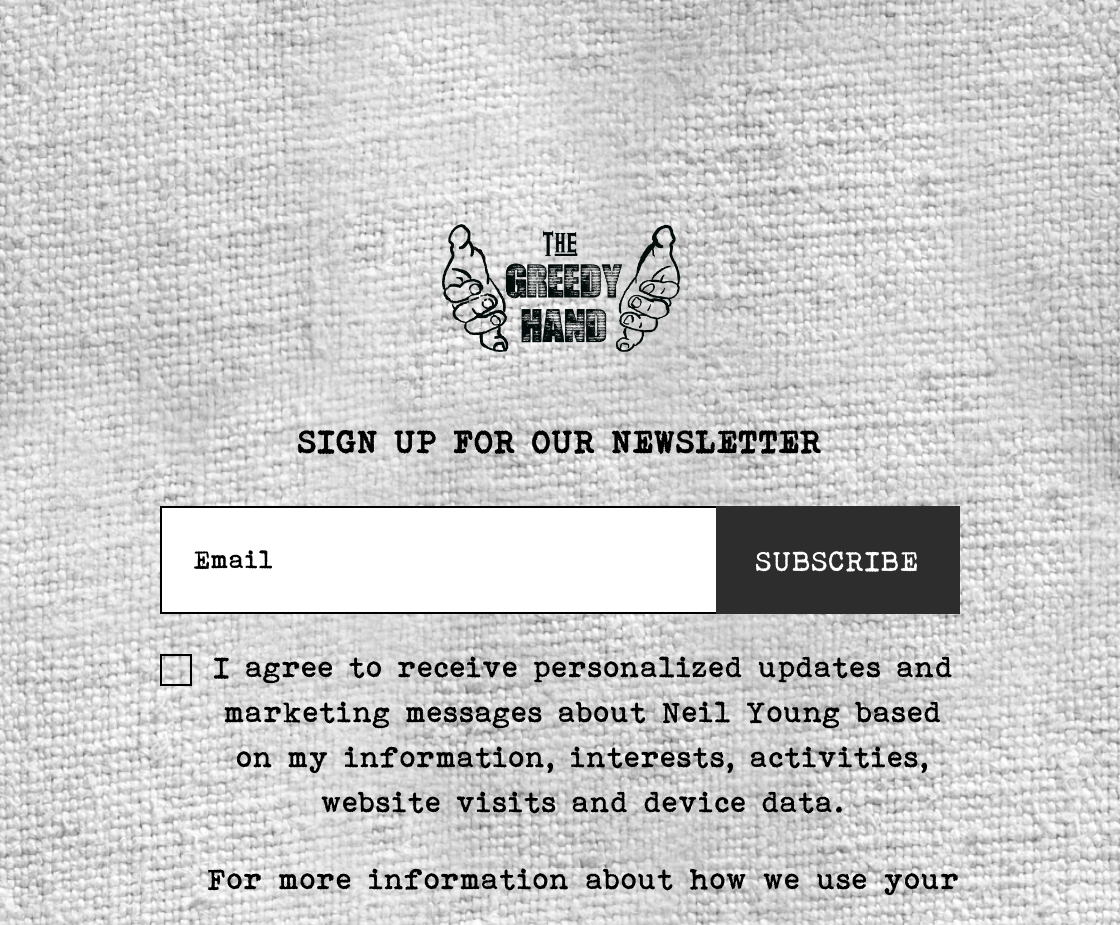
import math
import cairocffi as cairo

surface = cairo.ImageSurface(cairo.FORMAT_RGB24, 1120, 925)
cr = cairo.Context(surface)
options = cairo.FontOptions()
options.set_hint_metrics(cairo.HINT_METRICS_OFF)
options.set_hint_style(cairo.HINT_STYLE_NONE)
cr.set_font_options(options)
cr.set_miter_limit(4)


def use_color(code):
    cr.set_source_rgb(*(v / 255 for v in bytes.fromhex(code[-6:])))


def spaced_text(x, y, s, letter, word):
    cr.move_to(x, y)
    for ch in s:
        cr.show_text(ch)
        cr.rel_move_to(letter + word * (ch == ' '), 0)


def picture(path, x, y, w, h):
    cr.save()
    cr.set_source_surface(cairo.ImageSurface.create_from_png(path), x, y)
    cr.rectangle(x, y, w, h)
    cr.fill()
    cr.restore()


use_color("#ffffff")
cr.paint()
picture("img1.png", 0, 0, 1120, 925)
picture("img2.png", 442, 224, 238, 128)
cr.select_font_face("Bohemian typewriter", cairo.FONT_SLANT_NORMAL, cairo.FONT_WEIGHT_BOLD)
cr.set_font_size(32)
use_color("#000000")
cr.move_to(298, 452)
cr.show_text("SIGN UP FOR OUR NEWSLETTER")
use_color("#ffffff")
cr.rectangle(161, 507, 556, 106)
cr.fill_preserve()
use_color("#000000")
cr.stroke()
cr.select_font_face("Bohemian typewriter")
cr.set_font_size(26)
cr.move_to(194, 568)
cr.show_text("Email")
use_color("#2d2d2d")
cr.rectangle(716, 506, 244, 108)
cr.fill()
cr.set_font_size(28)
use_color("#ffffff")
cr.move_to(756, 570)
cr.show_text("SUBSCRIBE")
cr.rectangle(161, 655, 30, 30)
use_color("#000000")
cr.stroke()
cr.set_font_size(30)
cr.move_to(214, 677)
cr.show_text("I agree to receive personalized updates and")
cr.move_to(225, 722)
cr.show_text("marketing messages about Neil Young based")
cr.move_to(237, 767)
cr.show_text("on my information, interests, activities,")
cr.move_to(322, 812)
cr.show_text("website visits and device data.")
spaced_text(208, 889, "For more information about how we use your", 0, 1)
surface.write_to_png("result.png")
